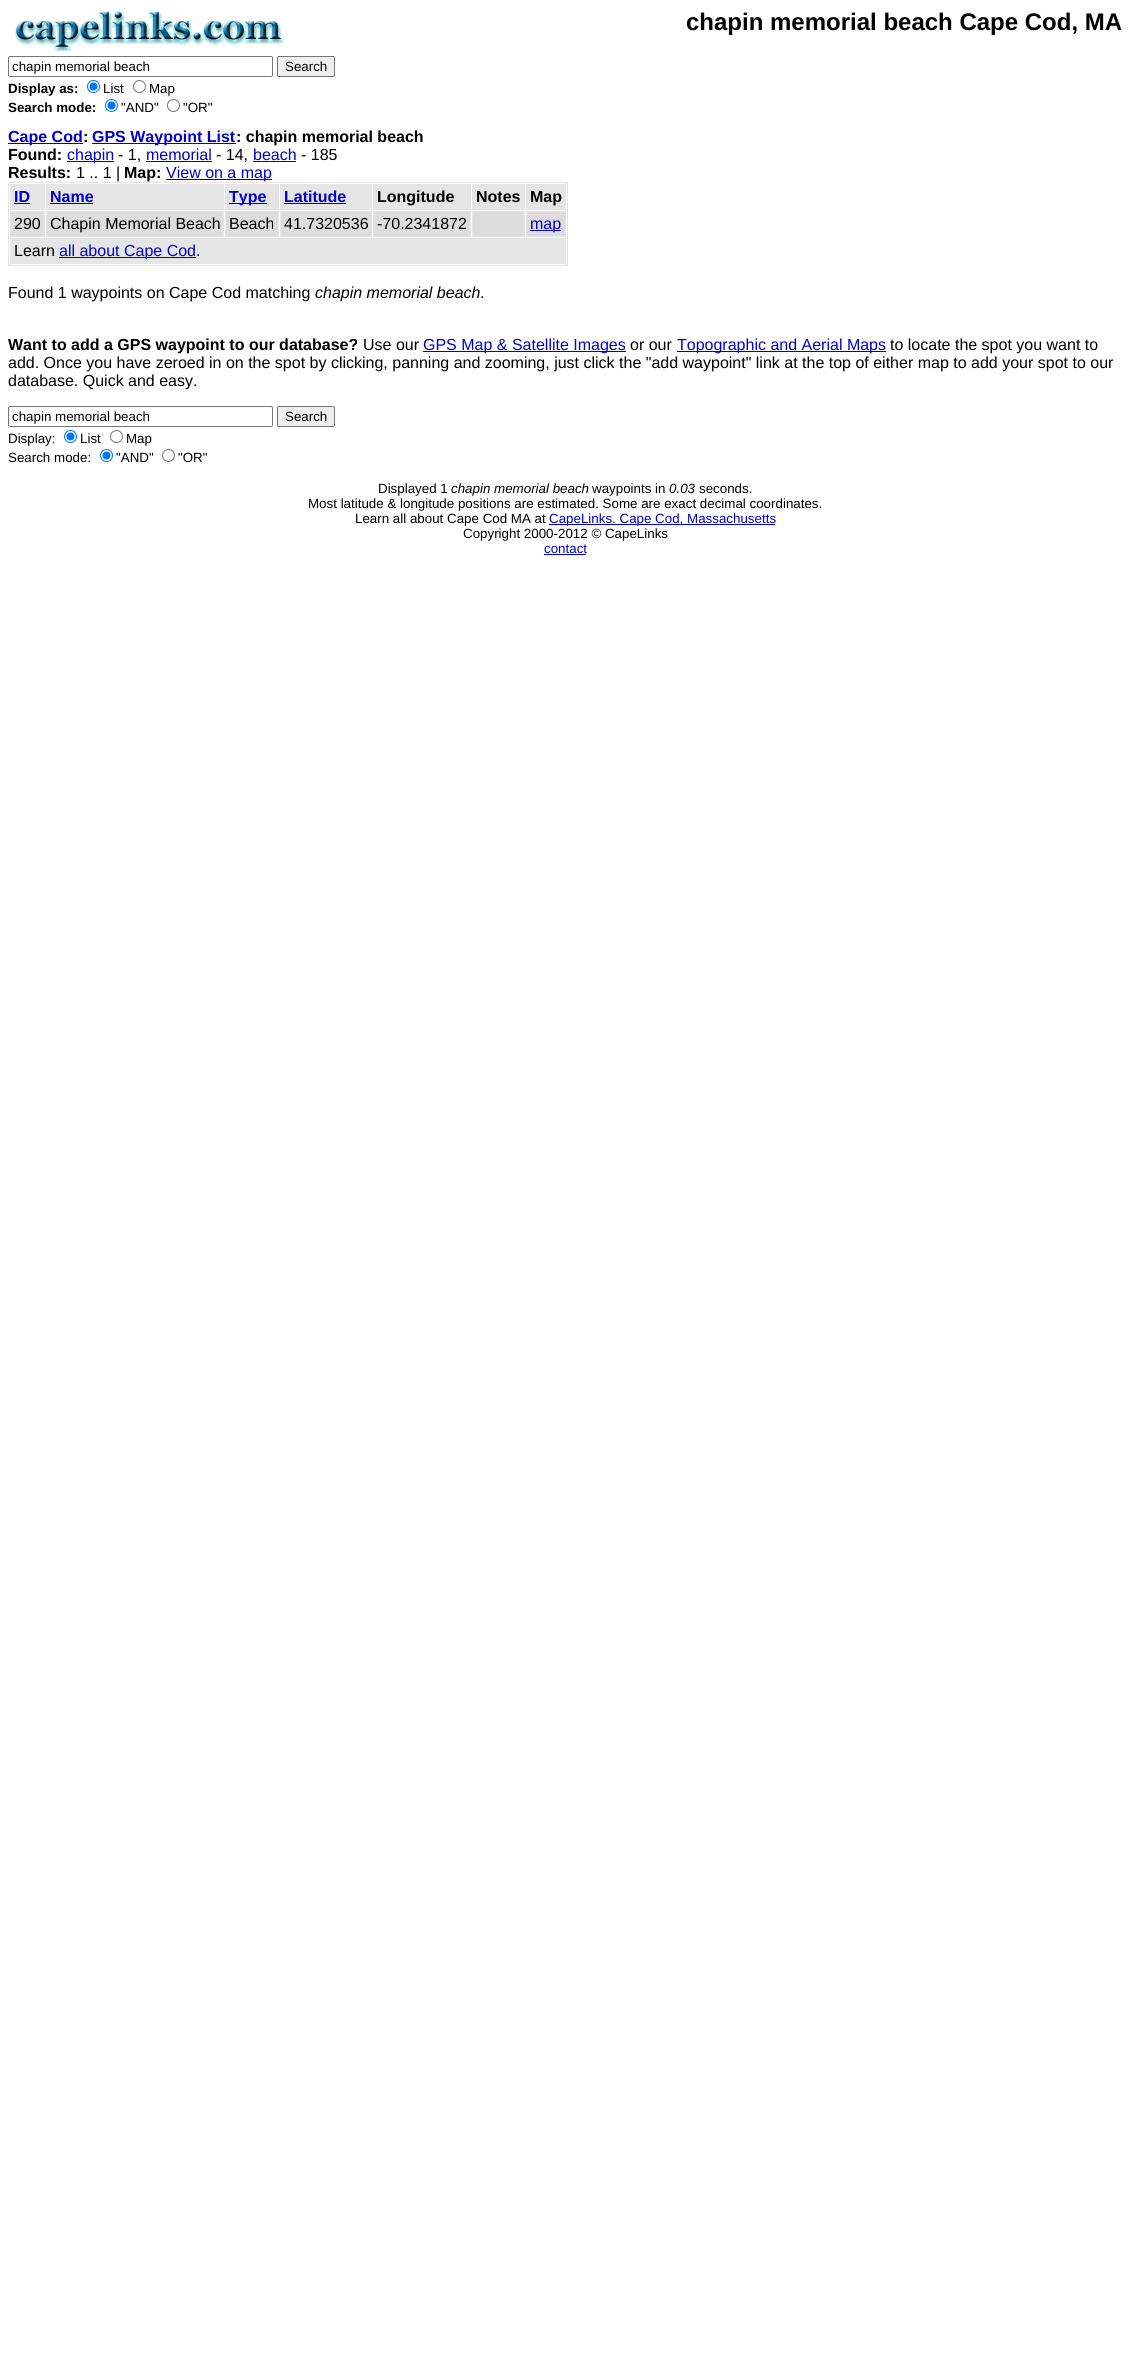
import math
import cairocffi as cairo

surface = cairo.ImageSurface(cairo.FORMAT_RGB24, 1130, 2361)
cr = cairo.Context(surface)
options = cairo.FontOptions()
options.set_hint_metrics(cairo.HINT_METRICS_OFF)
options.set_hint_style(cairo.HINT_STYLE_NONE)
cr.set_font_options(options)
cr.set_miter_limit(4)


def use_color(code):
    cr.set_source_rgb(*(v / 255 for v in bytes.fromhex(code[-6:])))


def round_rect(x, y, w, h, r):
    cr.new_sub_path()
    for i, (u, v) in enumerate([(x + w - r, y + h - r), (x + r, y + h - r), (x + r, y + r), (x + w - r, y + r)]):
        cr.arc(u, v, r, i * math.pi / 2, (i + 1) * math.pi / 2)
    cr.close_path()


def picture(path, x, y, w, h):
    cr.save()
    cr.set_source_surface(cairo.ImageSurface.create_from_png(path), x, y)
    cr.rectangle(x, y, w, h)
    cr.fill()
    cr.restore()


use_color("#ffffff")
cr.paint()
picture("img1.png", 15, 11, 269, 40)
cr.select_font_face("Liberation Sans", cairo.FONT_SLANT_NORMAL, cairo.FONT_WEIGHT_BOLD)
cr.set_font_size(24)
use_color("#000000")
cr.move_to(686, 30)
cr.show_text("chapin memorial beach Cape Cod, MA")
round_rect(8.5, 56.5, 264, 20, 1.5)
use_color("#767676")
cr.set_line_width(1)
cr.stroke()
cr.select_font_face("Liberation Sans")
cr.set_font_size(13.35)
use_color("#000000")
cr.move_to(12, 71)
cr.show_text("chapin memorial beach")
use_color("#efefef")
round_rect(277.5, 56.5, 57, 20, 1.5)
cr.fill_preserve()
use_color("#767676")
cr.stroke()
use_color("#000000")
cr.move_to(285, 71)
cr.show_text("Search")
cr.select_font_face("Liberation Sans", cairo.FONT_SLANT_NORMAL, cairo.FONT_WEIGHT_BOLD)
cr.move_to(8, 93)
cr.show_text("Display as:")
cr.new_path()
cr.arc(93.5, 86.5, 6, 0, 2 * math.pi)
use_color("#0075ff")
cr.stroke()
cr.arc(93.5, 86.5, 4, 0, 2 * math.pi)
cr.fill()
cr.select_font_face("Liberation Sans")
use_color("#000000")
cr.move_to(103, 93)
cr.show_text("List")
cr.new_path()
cr.arc(139.5, 86.5, 6, 0, 2 * math.pi)
use_color("#767676")
cr.stroke()
use_color("#000000")
cr.move_to(149, 93)
cr.show_text("Map")
cr.select_font_face("Liberation Sans", cairo.FONT_SLANT_NORMAL, cairo.FONT_WEIGHT_BOLD)
cr.move_to(8, 112)
cr.show_text("Search mode:")
cr.new_path()
cr.arc(111.5, 105.5, 6, 0, 2 * math.pi)
use_color("#0075ff")
cr.stroke()
cr.arc(111.5, 105.5, 4, 0, 2 * math.pi)
cr.fill()
cr.select_font_face("Liberation Sans")
use_color("#000000")
cr.move_to(121, 112)
cr.show_text("\"AND\"")
cr.new_path()
cr.arc(173.5, 105.5, 6, 0, 2 * math.pi)
use_color("#767676")
cr.stroke()
use_color("#000000")
cr.move_to(183, 112)
cr.show_text("\"OR\"")
use_color("#0000cc")
cr.rectangle(8, 143, 75, 1)
cr.fill()
cr.select_font_face("Liberation Sans", cairo.FONT_SLANT_NORMAL, cairo.FONT_WEIGHT_BOLD)
cr.set_font_size(16)
cr.move_to(8, 142)
cr.show_text("Cape Cod")
use_color("#000000")
cr.move_to(83, 142)
cr.show_text(":")
use_color("#0000cc")
cr.rectangle(92, 143, 144, 1)
cr.fill()
cr.move_to(92, 142)
cr.show_text("GPS Waypoint List")
use_color("#000000")
cr.move_to(236, 142)
cr.show_text(": chapin memorial beach")
cr.move_to(8, 160)
cr.show_text("Found:")
use_color("#0000cc")
cr.rectangle(67, 161, 47, 1)
cr.fill()
cr.select_font_face("Liberation Sans")
cr.move_to(67, 160)
cr.show_text("chapin")
use_color("#000000")
cr.move_to(118, 160)
cr.show_text("- 1,")
use_color("#0000cc")
cr.move_to(146, 160)
cr.show_text("memorial")
cr.rectangle(146, 161, 66, 1)
cr.fill()
use_color("#000000")
cr.move_to(216, 160)
cr.show_text("- 14,")
use_color("#0000cc")
cr.move_to(253, 160)
cr.show_text("beach")
cr.rectangle(253, 161, 43, 1)
cr.fill()
use_color("#000000")
cr.move_to(301, 160)
cr.show_text("- 185")
cr.select_font_face("Liberation Sans", cairo.FONT_SLANT_NORMAL, cairo.FONT_WEIGHT_BOLD)
cr.move_to(8, 178)
cr.show_text("Results:")
cr.select_font_face("Liberation Sans")
cr.move_to(76, 178)
cr.show_text("1 .. 1 |")
cr.select_font_face("Liberation Sans", cairo.FONT_SLANT_NORMAL, cairo.FONT_WEIGHT_BOLD)
cr.move_to(124, 178)
cr.show_text("Map:")
use_color("#0000cc")
cr.rectangle(166, 179, 106, 1)
cr.fill()
cr.select_font_face("Liberation Sans")
cr.move_to(166, 178)
cr.show_text("View on a map")
cr.rectangle(8.5, 182.5, 559, 83)
use_color("#e5e5e5")
cr.stroke()
cr.rectangle(10, 184, 35, 26)
cr.fill()
cr.select_font_face("Liberation Sans", cairo.FONT_SLANT_NORMAL, cairo.FONT_WEIGHT_BOLD)
use_color("#0000cc")
cr.move_to(14, 202)
cr.show_text("ID")
cr.rectangle(14, 203, 16, 1)
cr.fill()
use_color("#e5e5e5")
cr.rectangle(46, 184, 178, 26)
cr.fill()
use_color("#0000cc")
cr.move_to(50, 202)
cr.show_text("Name")
cr.rectangle(50, 203, 43, 1)
cr.fill()
use_color("#e5e5e5")
cr.rectangle(225, 184, 54, 26)
cr.fill()
use_color("#0000cc")
cr.rectangle(229, 203, 38, 1)
cr.fill()
cr.move_to(229, 202)
cr.show_text("Type")
use_color("#e5e5e5")
cr.rectangle(280, 184, 92, 26)
cr.fill()
use_color("#0000cc")
cr.move_to(284, 202)
cr.show_text("Latitude")
cr.rectangle(284, 203, 62, 1)
cr.fill()
use_color("#e5e5e5")
cr.rectangle(373, 184, 98, 26)
cr.fill()
use_color("#000000")
cr.move_to(377, 202)
cr.show_text("Longitude")
use_color("#e5e5e5")
cr.rectangle(472, 184, 53, 26)
cr.fill()
use_color("#000000")
cr.move_to(476, 202)
cr.show_text("Notes")
use_color("#e5e5e5")
cr.rectangle(526, 184, 40, 26)
cr.fill()
use_color("#000000")
cr.move_to(530, 202)
cr.show_text("Map")
use_color("#dddddd")
cr.rectangle(10.5, 211.5, 34, 25)
cr.fill_preserve()
use_color("#e5e5e5")
cr.stroke()
cr.select_font_face("Liberation Sans")
use_color("#000000")
cr.move_to(14, 229)
cr.show_text("290")
use_color("#dddddd")
cr.rectangle(46.5, 211.5, 177, 25)
cr.fill_preserve()
use_color("#e5e5e5")
cr.stroke()
use_color("#000000")
cr.move_to(50, 229)
cr.show_text("Chapin Memorial Beach")
use_color("#dddddd")
cr.rectangle(225.5, 211.5, 53, 25)
cr.fill_preserve()
use_color("#e5e5e5")
cr.stroke()
use_color("#000000")
cr.move_to(229, 229)
cr.show_text("Beach")
use_color("#dddddd")
cr.rectangle(280.5, 211.5, 91, 25)
cr.fill_preserve()
use_color("#e5e5e5")
cr.stroke()
use_color("#000000")
cr.move_to(284, 229)
cr.show_text("41.7320536")
use_color("#dddddd")
cr.rectangle(373.5, 211.5, 97, 25)
cr.fill_preserve()
use_color("#e5e5e5")
cr.stroke()
use_color("#000000")
cr.move_to(377, 229)
cr.show_text("-70.2341872")
use_color("#dddddd")
cr.rectangle(472.5, 211.5, 52, 25)
cr.fill_preserve()
use_color("#e5e5e5")
cr.stroke()
use_color("#dddddd")
cr.rectangle(526.5, 211.5, 39, 25)
cr.fill_preserve()
use_color("#e5e5e5")
cr.stroke()
use_color("#0000cc")
cr.rectangle(530, 230, 31, 1)
cr.fill()
cr.move_to(530, 229)
cr.show_text("map")
use_color("#e5e5e5")
cr.rectangle(10, 238, 556, 26)
cr.fill()
use_color("#000000")
cr.move_to(14, 256)
cr.show_text("Learn")
use_color("#0000cc")
cr.rectangle(59, 257, 137, 1)
cr.fill()
cr.move_to(59, 256)
cr.show_text("all about Cape Cod")
use_color("#000000")
cr.move_to(196, 256)
cr.show_text(".")
cr.move_to(8, 298)
cr.show_text("Found 1 waypoints on Cape Cod matching")
cr.select_font_face("Liberation Sans", cairo.FONT_SLANT_ITALIC)
cr.move_to(315, 298)
cr.show_text("chapin memorial beach")
cr.select_font_face("Liberation Sans")
cr.move_to(480, 298)
cr.show_text(".")
cr.select_font_face("Liberation Sans", cairo.FONT_SLANT_NORMAL, cairo.FONT_WEIGHT_BOLD)
cr.move_to(8, 350)
cr.show_text("Want to add a GPS waypoint to our database?")
cr.select_font_face("Liberation Sans")
cr.move_to(363, 350)
cr.show_text("Use our")
use_color("#0000cc")
cr.rectangle(423, 351, 203, 1)
cr.fill()
cr.move_to(423, 350)
cr.show_text("GPS Map & Satellite Images")
use_color("#000000")
cr.move_to(630, 350)
cr.show_text("or our")
use_color("#0000cc")
cr.rectangle(677, 351, 209, 1)
cr.fill()
cr.move_to(677, 350)
cr.show_text("Topographic and Aerial Maps")
use_color("#000000")
cr.move_to(890, 350)
cr.show_text("to locate the spot you want to")
cr.move_to(8, 368)
cr.show_text("add. Once you have zeroed in on the spot by clicking, panning and zooming, just click the \"add waypoint\" link at the top of either map to add your spot to our")
cr.move_to(8, 386)
cr.show_text("database. Quick and easy.")
round_rect(8.5, 406.5, 264, 20, 1.5)
use_color("#767676")
cr.stroke()
cr.set_font_size(13.35)
use_color("#000000")
cr.move_to(12, 421)
cr.show_text("chapin memorial beach")
use_color("#efefef")
round_rect(277.5, 406.5, 57, 20, 1.5)
cr.fill_preserve()
use_color("#767676")
cr.stroke()
use_color("#000000")
cr.move_to(285, 421)
cr.show_text("Search")
cr.move_to(8, 443)
cr.show_text("Display:")
cr.new_path()
cr.arc(70.5, 436.5, 6, 0, 2 * math.pi)
use_color("#0075ff")
cr.stroke()
cr.arc(70.5, 436.5, 4, 0, 2 * math.pi)
cr.fill()
use_color("#000000")
cr.move_to(80, 443)
cr.show_text("List")
cr.new_path()
cr.arc(116.5, 436.5, 6, 0, 2 * math.pi)
use_color("#767676")
cr.stroke()
use_color("#000000")
cr.move_to(126, 443)
cr.show_text("Map")
cr.move_to(8, 462)
cr.show_text("Search mode:")
cr.new_path()
cr.arc(106.5, 455.5, 6, 0, 2 * math.pi)
use_color("#0075ff")
cr.stroke()
cr.arc(106.5, 455.5, 4, 0, 2 * math.pi)
cr.fill()
use_color("#000000")
cr.move_to(116, 462)
cr.show_text("\"AND\"")
cr.new_path()
cr.arc(168.5, 455.5, 6, 0, 2 * math.pi)
use_color("#767676")
cr.stroke()
use_color("#000000")
cr.move_to(178, 462)
cr.show_text("\"OR\"")
cr.move_to(378, 493)
cr.show_text("Displayed 1")
cr.select_font_face("Liberation Sans", cairo.FONT_SLANT_ITALIC)
cr.move_to(451, 493)
cr.show_text("chapin memorial beach")
cr.select_font_face("Liberation Sans")
cr.move_to(592, 493)
cr.show_text("waypoints in")
cr.select_font_face("Liberation Sans", cairo.FONT_SLANT_ITALIC)
cr.move_to(669, 493)
cr.show_text("0.03")
cr.select_font_face("Liberation Sans")
cr.move_to(699, 493)
cr.show_text("seconds.")
cr.move_to(308, 508)
cr.show_text("Most latitude & longitude positions are estimated. Some are exact decimal coordinates.")
cr.move_to(355, 523)
cr.show_text("Learn all about Cape Cod MA at")
use_color("#0000cc")
cr.rectangle(549, 524, 226, 1)
cr.fill()
cr.move_to(549, 523)
cr.show_text("CapeLinks. Cape Cod, Massachusetts")
use_color("#000000")
cr.move_to(463, 538)
cr.show_text("Copyright 2000-2012 © CapeLinks")
use_color("#0000cc")
cr.move_to(544, 553)
cr.show_text("contact")
cr.rectangle(544, 554, 42, 1)
cr.fill()
surface.write_to_png("result.png")
